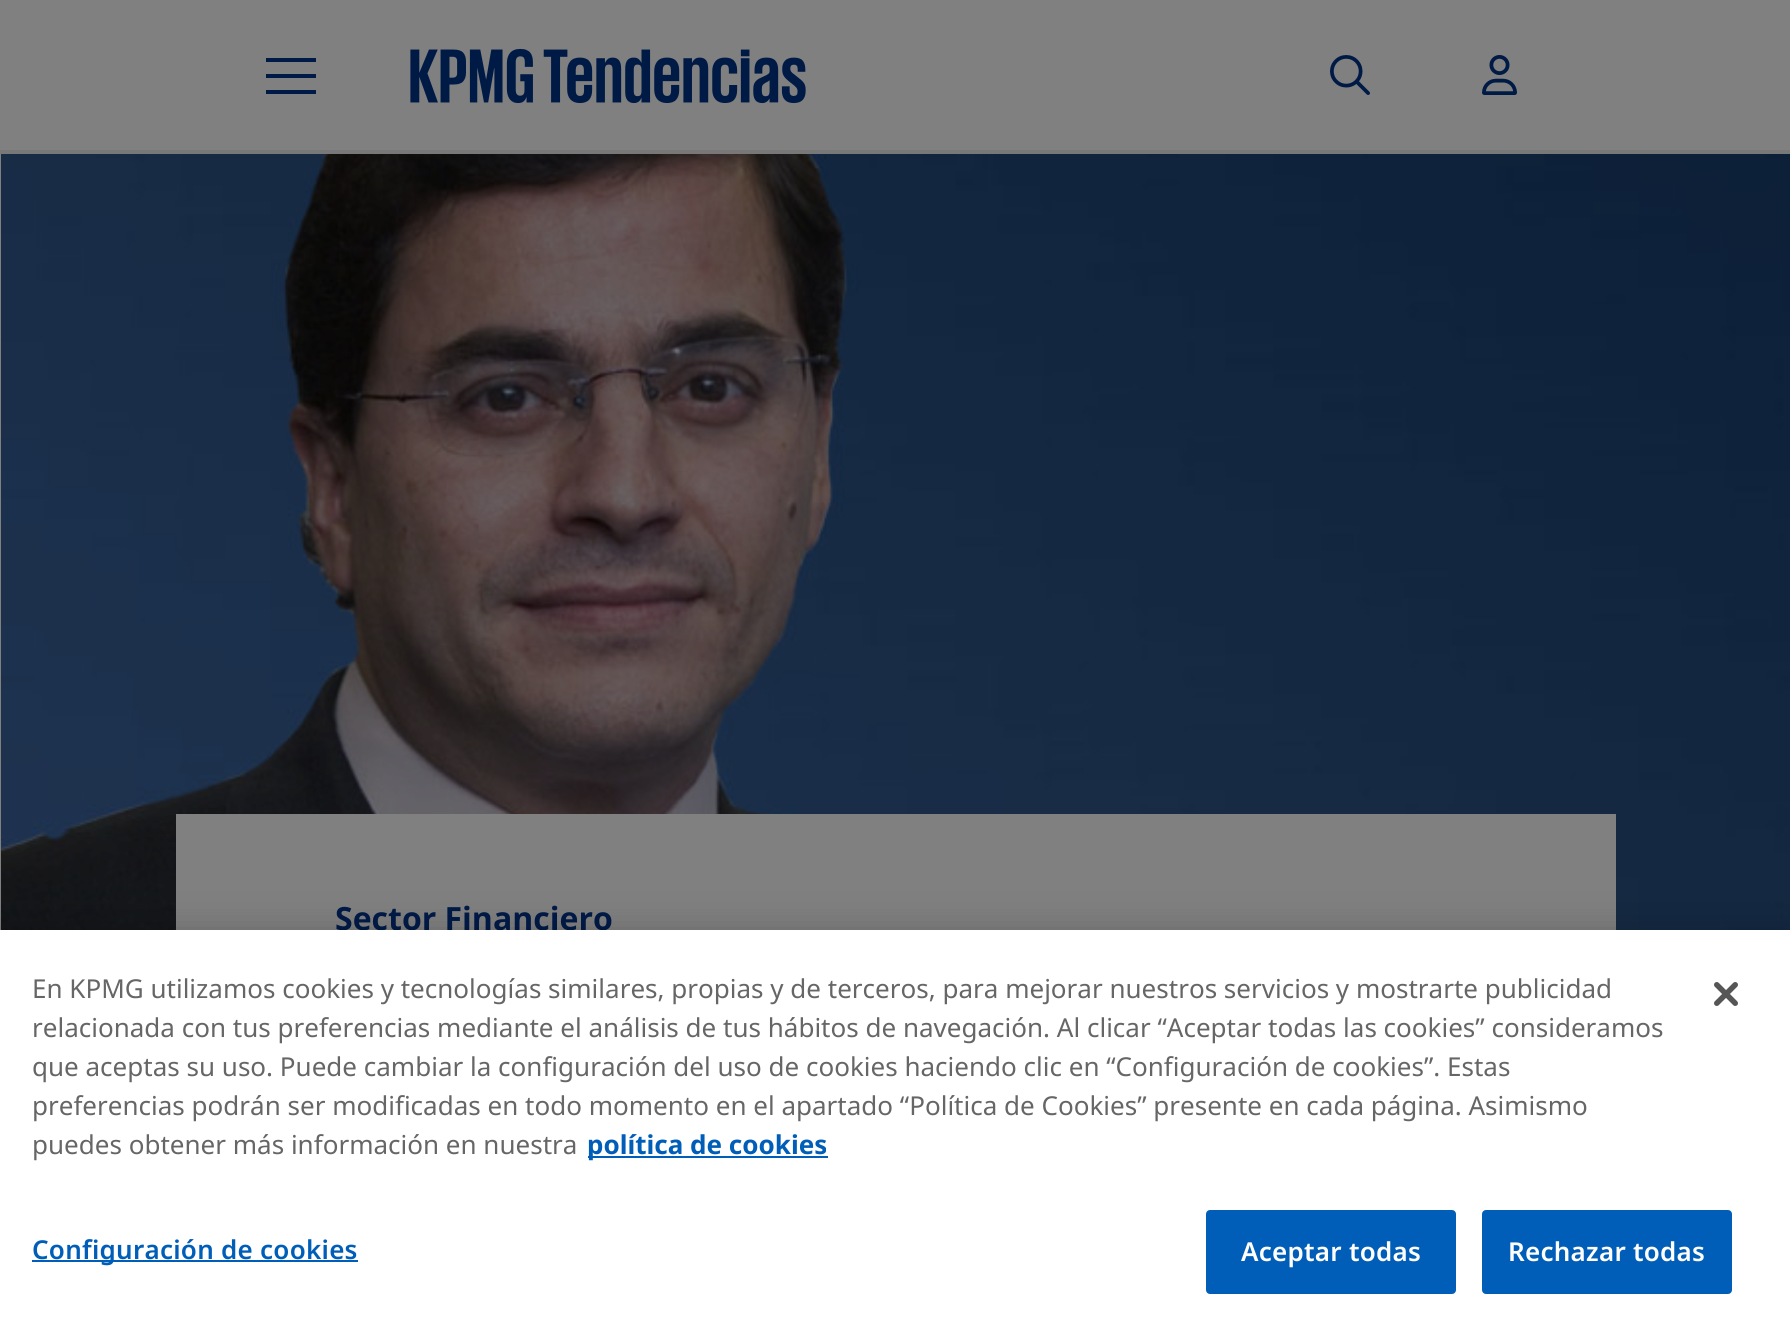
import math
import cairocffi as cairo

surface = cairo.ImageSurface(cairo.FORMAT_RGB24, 1790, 1335)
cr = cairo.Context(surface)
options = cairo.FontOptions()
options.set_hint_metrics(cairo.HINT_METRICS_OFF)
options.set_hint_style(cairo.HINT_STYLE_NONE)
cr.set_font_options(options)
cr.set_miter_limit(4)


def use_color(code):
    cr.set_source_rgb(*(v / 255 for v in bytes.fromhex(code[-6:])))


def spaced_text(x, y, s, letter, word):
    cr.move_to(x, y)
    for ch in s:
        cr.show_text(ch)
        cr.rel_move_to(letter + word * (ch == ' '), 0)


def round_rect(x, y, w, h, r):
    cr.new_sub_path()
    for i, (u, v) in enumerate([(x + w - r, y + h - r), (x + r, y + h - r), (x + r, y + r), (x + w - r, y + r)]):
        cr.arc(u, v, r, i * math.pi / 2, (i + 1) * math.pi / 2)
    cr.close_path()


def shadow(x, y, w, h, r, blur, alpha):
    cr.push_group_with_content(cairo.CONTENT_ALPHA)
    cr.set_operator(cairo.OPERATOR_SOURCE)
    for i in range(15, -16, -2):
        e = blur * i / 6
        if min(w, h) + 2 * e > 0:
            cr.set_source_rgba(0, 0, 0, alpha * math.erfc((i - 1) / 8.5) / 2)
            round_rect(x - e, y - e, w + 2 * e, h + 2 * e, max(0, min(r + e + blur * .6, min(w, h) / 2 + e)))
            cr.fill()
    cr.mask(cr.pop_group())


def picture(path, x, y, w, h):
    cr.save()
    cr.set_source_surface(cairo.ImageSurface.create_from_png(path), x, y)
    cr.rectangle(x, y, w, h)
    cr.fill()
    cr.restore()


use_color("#808080")
cr.paint()
use_color("#001a47")
cr.rectangle(266, 74, 50, 4)
cr.fill()
cr.rectangle(266, 58, 50, 4)
cr.fill()
cr.rectangle(266, 90, 50, 4)
cr.fill()
picture("img1.png", 410, 48, 396, 56)
picture("img2.png", 1330, 55, 40, 40)
picture("img3.png", 1482, 55, 35, 40)
use_color("#787878")
cr.rectangle(0, 150, 1790, 4)
cr.fill()
picture("img4.png", 1, 154, 1789, 776)
use_color("#808080")
cr.rectangle(176, 814, 1440, 116)
cr.fill()
cr.select_font_face("Open Sans", cairo.FONT_SLANT_NORMAL, cairo.FONT_WEIGHT_BOLD)
cr.set_font_size(32)
use_color("#001a47")
cr.move_to(335, 930)
cr.show_text("Sector Financiero")
use_color("#000000")
shadow(0, 930, 1790, 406, 0, 18, 0.2)
use_color("#ffffff")
cr.rectangle(0, 930, 1790, 405)
cr.fill()
cr.select_font_face("Noto Sans")
cr.set_font_size(26.02)
use_color("#666666")
cr.move_to(32, 998)
cr.show_text("En KPMG utilizamos cookies y tecnologías similares, propias y de terceros, para mejorar nuestros servicios y mostrarte publicidad")
cr.move_to(32, 1037)
cr.show_text("relacionada con tus preferencias mediante el análisis de tus hábitos de navegación. Al clicar “Aceptar todas las cookies” consideramos")
cr.move_to(32, 1076)
cr.show_text("que aceptas su uso. Puede cambiar la configuración del uso de cookies haciendo clic en “Configuración de cookies”. Estas")
cr.move_to(32, 1115)
cr.show_text("preferencias podrán ser modificadas en todo momento en el apartado “Política de Cookies” presente en cada página. Asimismo")
cr.move_to(32, 1154)
cr.show_text("puedes obtener más información en nuestra")
use_color("#005eb8")
cr.rectangle(588, 1156, 240, 2)
cr.fill()
cr.select_font_face("Noto Sans", cairo.FONT_SLANT_NORMAL, cairo.FONT_WEIGHT_BOLD)
cr.move_to(587, 1154)
cr.show_text("política de cookies")
cr.rectangle(32, 1260, 326, 2)
cr.fill()
cr.select_font_face("Noto Sans SemiBold")
spaced_text(32, 1259, "Configuración de cookies", 0.25, 0)
round_rect(1207, 1211, 248, 82, 3)
cr.fill_preserve()
cr.stroke()
use_color("#ffffff")
spaced_text(1241, 1261, "Aceptar todas", 0.25, 0)
use_color("#005eb8")
round_rect(1483, 1211, 248, 82, 3)
cr.fill_preserve()
cr.stroke()
use_color("#ffffff")
spaced_text(1508, 1261, "Rechazar todas", 0.25, 0)
picture("img5.png", 1714, 982, 24, 24)
surface.write_to_png("result.png")
